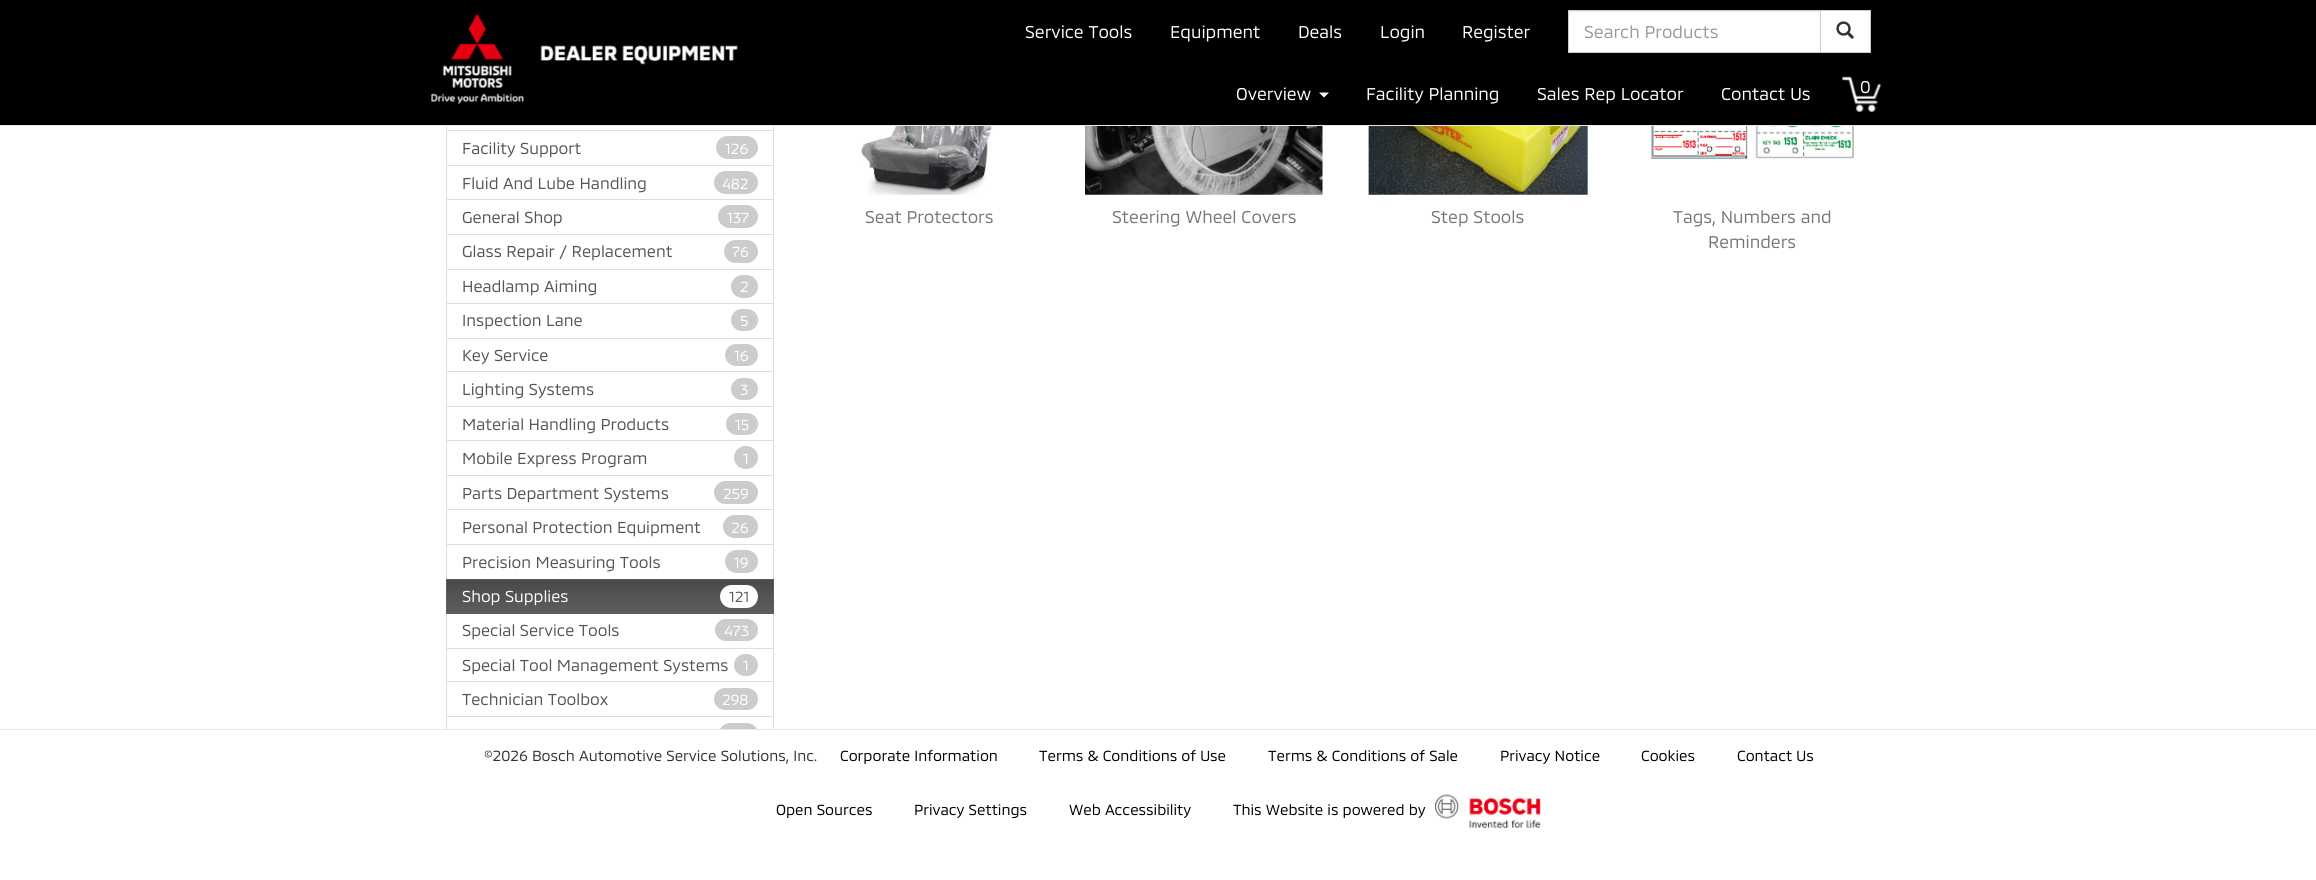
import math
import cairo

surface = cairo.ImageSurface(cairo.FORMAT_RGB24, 2316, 880)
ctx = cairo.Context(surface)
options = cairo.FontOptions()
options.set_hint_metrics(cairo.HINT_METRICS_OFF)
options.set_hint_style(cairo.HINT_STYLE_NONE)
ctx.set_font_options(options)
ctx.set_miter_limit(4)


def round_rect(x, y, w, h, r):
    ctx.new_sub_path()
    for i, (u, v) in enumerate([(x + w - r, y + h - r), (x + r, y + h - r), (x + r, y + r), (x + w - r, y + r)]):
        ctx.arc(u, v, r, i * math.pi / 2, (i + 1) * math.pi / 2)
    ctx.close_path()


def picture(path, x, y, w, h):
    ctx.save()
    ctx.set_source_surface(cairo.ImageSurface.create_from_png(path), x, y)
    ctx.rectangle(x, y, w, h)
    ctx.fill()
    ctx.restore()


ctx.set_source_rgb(1, 1, 1)
ctx.paint()
ctx.rectangle(446.5, 96.5, 327, 34)
ctx.set_source_rgb(0.867, 0.867, 0.867)
ctx.set_line_width(1)
ctx.stroke()
ctx.set_source_rgb(0, 0, 0)
ctx.rectangle(0, 0, 2316, 125)
ctx.fill()
ctx.set_source_rgb(0.906, 0.906, 0.906)
ctx.rectangle(0, 125, 2316, 1)
ctx.fill()
picture("img1.png", 431, 14, 307, 91)
ctx.select_font_face("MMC")
ctx.set_font_size(17.5)
ctx.set_source_rgb(1, 1, 1)
ctx.move_to(1025, 38)
ctx.show_text("Service Tools")
ctx.move_to(1170, 38)
ctx.show_text("Equipment")
ctx.move_to(1298, 38)
ctx.show_text("Deals")
ctx.move_to(1380, 38)
ctx.show_text("Login")
ctx.move_to(1462, 38)
ctx.show_text("Register")
ctx.rectangle(1569, 12, 251, 40)
ctx.fill()
ctx.set_source_rgb(0.925, 0.925, 0.925)
ctx.rectangle(1569, 11, 251, 1)
ctx.fill()
ctx.rectangle(1568.5, 10.5, 252, 42)
ctx.set_source_rgb(0.8, 0.8, 0.8)
ctx.stroke()
ctx.set_source_rgb(0.6, 0.6, 0.6)
ctx.move_to(1584, 38)
ctx.show_text("Search Products")
ctx.set_source_rgb(1, 1, 1)
ctx.rectangle(1820.5, 10.5, 50, 42)
ctx.fill_preserve()
ctx.set_source_rgb(0.8, 0.8, 0.8)
ctx.stroke()
picture("img2.png", 1836, 21, 18, 18)
ctx.set_source_rgb(1, 1, 1)
ctx.move_to(1236, 100)
ctx.show_text("Overview")
ctx.new_path()
ctx.move_to(1319, 92.5)
ctx.line_to(1329, 92.5)
ctx.line_to(1324, 97.5)
ctx.close_path()
ctx.fill()
ctx.move_to(1366, 100)
ctx.show_text("Facility Planning")
ctx.move_to(1537, 100)
ctx.show_text("Sales Rep Locator")
ctx.move_to(1721, 100)
ctx.show_text("Contact Us")
picture("img3.png", 1841, 76, 40, 36)
ctx.move_to(1860, 93)
ctx.show_text("0")
ctx.rectangle(446.5, 130.5, 327, 35)
ctx.set_source_rgb(0.867, 0.867, 0.867)
ctx.stroke()
ctx.set_font_size(16.25)
ctx.set_source_rgb(0.333, 0.333, 0.333)
ctx.move_to(462, 154)
ctx.show_text("Facility Support")
ctx.set_source_rgb(0.8, 0.8, 0.8)
round_rect(716, 136, 42, 23, 11.5)
ctx.fill()
ctx.set_font_size(15)
ctx.set_source_rgb(1, 1, 1)
ctx.move_to(725, 154)
ctx.show_text("126")
ctx.rectangle(446.5, 165.5, 327, 34)
ctx.set_source_rgb(0.867, 0.867, 0.867)
ctx.stroke()
ctx.set_font_size(16.25)
ctx.set_source_rgb(0.333, 0.333, 0.333)
ctx.move_to(462, 189)
ctx.show_text("Fluid And Lube Handling")
ctx.set_source_rgb(0.8, 0.8, 0.8)
round_rect(714, 171, 44, 23, 11.5)
ctx.fill()
ctx.set_font_size(15)
ctx.set_source_rgb(1, 1, 1)
ctx.move_to(722, 189)
ctx.show_text("482")
ctx.rectangle(446.5, 199.5, 327, 35)
ctx.set_source_rgb(0.867, 0.867, 0.867)
ctx.stroke()
ctx.set_font_size(16.25)
ctx.set_source_rgb(0.333, 0.333, 0.333)
ctx.move_to(462, 223)
ctx.show_text("General Shop")
ctx.set_source_rgb(0.8, 0.8, 0.8)
round_rect(718, 205, 40, 23, 11.5)
ctx.fill()
ctx.set_font_size(15)
ctx.set_source_rgb(1, 1, 1)
ctx.move_to(727, 223)
ctx.show_text("137")
ctx.rectangle(446.5, 234.5, 327, 35)
ctx.set_source_rgb(0.867, 0.867, 0.867)
ctx.stroke()
ctx.set_font_size(16.25)
ctx.set_source_rgb(0.333, 0.333, 0.333)
ctx.move_to(462, 257)
ctx.show_text("Glass Repair / Replacement")
ctx.set_source_rgb(0.8, 0.8, 0.8)
round_rect(724, 240, 34, 23, 11.5)
ctx.fill()
ctx.set_font_size(15)
ctx.set_source_rgb(1, 1, 1)
ctx.move_to(732, 257)
ctx.show_text("76")
ctx.rectangle(446.5, 269.5, 327, 34)
ctx.set_source_rgb(0.867, 0.867, 0.867)
ctx.stroke()
ctx.set_font_size(16.25)
ctx.set_source_rgb(0.333, 0.333, 0.333)
ctx.move_to(462, 292)
ctx.show_text("Headlamp Aiming")
ctx.set_source_rgb(0.8, 0.8, 0.8)
round_rect(731, 275, 27, 23, 11.5)
ctx.fill()
ctx.set_font_size(15)
ctx.set_source_rgb(1, 1, 1)
ctx.move_to(740, 292)
ctx.show_text("2")
ctx.rectangle(446.5, 303.5, 327, 35)
ctx.set_source_rgb(0.867, 0.867, 0.867)
ctx.stroke()
ctx.set_font_size(16.25)
ctx.set_source_rgb(0.333, 0.333, 0.333)
ctx.move_to(462, 326)
ctx.show_text("Inspection Lane")
ctx.set_source_rgb(0.8, 0.8, 0.8)
round_rect(731, 309, 27, 22, 11)
ctx.fill()
ctx.set_font_size(15)
ctx.set_source_rgb(1, 1, 1)
ctx.move_to(740, 326)
ctx.show_text("5")
ctx.rectangle(446.5, 338.5, 327, 34)
ctx.set_source_rgb(0.867, 0.867, 0.867)
ctx.stroke()
ctx.set_font_size(16.25)
ctx.set_source_rgb(0.333, 0.333, 0.333)
ctx.move_to(462, 361)
ctx.show_text("Key Service")
ctx.set_source_rgb(0.8, 0.8, 0.8)
round_rect(725, 344, 33, 22, 11)
ctx.fill()
ctx.set_font_size(15)
ctx.set_source_rgb(1, 1, 1)
ctx.move_to(734, 361)
ctx.show_text("16")
ctx.rectangle(447, 372, 326, 1)
ctx.fill()
ctx.rectangle(446.5, 371.5, 327, 36)
ctx.set_source_rgb(0.867, 0.867, 0.867)
ctx.stroke()
ctx.set_font_size(16.25)
ctx.set_source_rgb(0.333, 0.333, 0.333)
ctx.move_to(462, 395)
ctx.show_text("Lighting Systems")
ctx.set_source_rgb(0.8, 0.8, 0.8)
round_rect(731, 378, 27, 22, 11)
ctx.fill()
ctx.set_font_size(15)
ctx.set_source_rgb(1, 1, 1)
ctx.move_to(740, 395)
ctx.show_text("3")
ctx.rectangle(447, 407, 326, 1)
ctx.fill()
ctx.rectangle(446.5, 406.5, 327, 34)
ctx.set_source_rgb(0.867, 0.867, 0.867)
ctx.stroke()
ctx.set_font_size(16.25)
ctx.set_source_rgb(0.333, 0.333, 0.333)
ctx.move_to(462, 430)
ctx.show_text("Material Handling Products")
ctx.set_source_rgb(0.8, 0.8, 0.8)
round_rect(726, 413, 32, 22, 11)
ctx.fill()
ctx.set_font_size(15)
ctx.set_source_rgb(1, 1, 1)
ctx.move_to(735, 430)
ctx.show_text("15")
ctx.rectangle(446.5, 440.5, 327, 35)
ctx.set_source_rgb(0.867, 0.867, 0.867)
ctx.stroke()
ctx.set_font_size(16.25)
ctx.set_source_rgb(0.333, 0.333, 0.333)
ctx.move_to(462, 464)
ctx.show_text("Mobile Express Program")
ctx.set_source_rgb(0.8, 0.8, 0.8)
round_rect(734, 446, 24, 23, 11.5)
ctx.fill()
ctx.set_font_size(15)
ctx.set_source_rgb(1, 1, 1)
ctx.move_to(743, 464)
ctx.show_text("1")
ctx.rectangle(446.5, 475.5, 327, 34)
ctx.set_source_rgb(0.867, 0.867, 0.867)
ctx.stroke()
ctx.set_font_size(16.25)
ctx.set_source_rgb(0.333, 0.333, 0.333)
ctx.move_to(462, 499)
ctx.show_text("Parts Department Systems")
ctx.set_source_rgb(0.8, 0.8, 0.8)
round_rect(714, 481, 44, 23, 11.5)
ctx.fill()
ctx.set_font_size(15)
ctx.set_source_rgb(1, 1, 1)
ctx.move_to(723, 499)
ctx.show_text("259")
ctx.rectangle(446.5, 509.5, 327, 35)
ctx.set_source_rgb(0.867, 0.867, 0.867)
ctx.stroke()
ctx.set_font_size(16.25)
ctx.set_source_rgb(0.333, 0.333, 0.333)
ctx.move_to(462, 533)
ctx.show_text("Personal Protection Equipment")
ctx.set_source_rgb(0.8, 0.8, 0.8)
round_rect(723, 515, 35, 23, 11.5)
ctx.fill()
ctx.set_font_size(15)
ctx.set_source_rgb(1, 1, 1)
ctx.move_to(731, 533)
ctx.show_text("26")
ctx.rectangle(446.5, 544.5, 327, 35)
ctx.set_source_rgb(0.867, 0.867, 0.867)
ctx.stroke()
ctx.set_font_size(16.25)
ctx.set_source_rgb(0.333, 0.333, 0.333)
ctx.move_to(462, 568)
ctx.show_text("Precision Measuring Tools")
ctx.set_source_rgb(0.8, 0.8, 0.8)
round_rect(725, 550, 33, 23, 11.5)
ctx.fill()
ctx.set_font_size(15)
ctx.set_source_rgb(1, 1, 1)
ctx.move_to(734, 568)
ctx.show_text("19")
gradient = cairo.LinearGradient(610, 580, 610, 613)
gradient.add_color_stop_rgba(0, 0.29, 0.29, 0.29, 1)
gradient.add_color_stop_rgba(1, 0.365, 0.365, 0.365, 1)
ctx.set_source(gradient)
ctx.rectangle(447, 580, 326, 33)
ctx.fill()
ctx.rectangle(446.5, 613.5, 327, 35)
ctx.set_source_rgb(0.867, 0.867, 0.867)
ctx.stroke()
ctx.rectangle(446.5, 579.5, 327, 34)
ctx.set_source_rgb(0.365, 0.365, 0.365)
ctx.stroke()
ctx.set_font_size(16.25)
ctx.set_source_rgb(1, 1, 1)
ctx.move_to(462, 602)
ctx.show_text("Shop Supplies")
round_rect(720, 585, 38, 23, 11.5)
ctx.fill()
ctx.set_font_size(15)
ctx.set_source_rgb(0.365, 0.365, 0.365)
ctx.move_to(729, 602)
ctx.show_text("121")
ctx.set_font_size(16.25)
ctx.set_source_rgb(0.333, 0.333, 0.333)
ctx.move_to(462, 636)
ctx.show_text("Special Service Tools")
ctx.set_source_rgb(0.8, 0.8, 0.8)
round_rect(715, 619, 43, 22, 11)
ctx.fill()
ctx.set_font_size(15)
ctx.set_source_rgb(1, 1, 1)
ctx.move_to(724, 636)
ctx.show_text("473")
ctx.rectangle(446.5, 648.5, 327, 34)
ctx.set_source_rgb(0.867, 0.867, 0.867)
ctx.stroke()
ctx.set_font_size(16.25)
ctx.set_source_rgb(0.333, 0.333, 0.333)
ctx.move_to(462, 671)
ctx.show_text("Special Tool Management Systems")
ctx.set_source_rgb(0.8, 0.8, 0.8)
round_rect(734, 654, 24, 22, 11)
ctx.fill()
ctx.set_font_size(15)
ctx.set_source_rgb(1, 1, 1)
ctx.move_to(743, 671)
ctx.show_text("1")
ctx.rectangle(447, 682, 326, 1)
ctx.fill()
ctx.rectangle(446.5, 681.5, 327, 36)
ctx.set_source_rgb(0.867, 0.867, 0.867)
ctx.stroke()
ctx.set_font_size(16.25)
ctx.set_source_rgb(0.333, 0.333, 0.333)
ctx.move_to(462, 705)
ctx.show_text("Technician Toolbox")
ctx.set_source_rgb(0.8, 0.8, 0.8)
round_rect(714, 688, 44, 22, 11)
ctx.fill()
ctx.set_font_size(15)
ctx.set_source_rgb(1, 1, 1)
ctx.move_to(722, 705)
ctx.show_text("298")
ctx.rectangle(447, 717, 326, 1)
ctx.fill()
ctx.rectangle(446.5, 716.5, 327, 34)
ctx.set_source_rgb(0.867, 0.867, 0.867)
ctx.stroke()
ctx.set_source_rgb(0.8, 0.8, 0.8)
round_rect(719, 723, 39, 22, 11)
ctx.fill()
picture("img4.png", 861, 126, 137, 69)
ctx.set_font_size(17.5)
ctx.set_source_rgb(0.467, 0.467, 0.467)
ctx.move_to(865, 223)
ctx.show_text("Seat Protectors")
picture("img5.png", 1085, 126, 238, 69)
ctx.move_to(1112, 223)
ctx.show_text("Steering Wheel Covers")
picture("img6.png", 1368, 126, 221, 69)
ctx.move_to(1431, 223)
ctx.show_text("Step Stools")
picture("img7.png", 1651, 126, 203, 33)
ctx.move_to(1673, 223)
ctx.show_text("Tags, Numbers and")
ctx.move_to(1708, 248)
ctx.show_text("Reminders")
ctx.set_source_rgb(1, 1, 1)
ctx.rectangle(446, 730, 328, 21)
ctx.fill()
ctx.set_source_rgb(0.906, 0.906, 0.906)
ctx.rectangle(0, 729, 2316, 1)
ctx.fill()
ctx.set_font_size(15)
ctx.set_source_rgb(0.2, 0.2, 0.2)
ctx.move_to(484, 761)
ctx.show_text("©2026 Bosch Automotive Service Solutions, Inc.")
ctx.set_source_rgb(0, 0, 0)
ctx.move_to(840, 761)
ctx.show_text("Corporate Information")
ctx.move_to(1039, 761)
ctx.show_text("Terms & Conditions of Use")
ctx.move_to(1268, 761)
ctx.show_text("Terms & Conditions of Sale")
ctx.move_to(1500, 761)
ctx.show_text("Privacy Notice")
ctx.move_to(1641, 761)
ctx.show_text("Cookies")
ctx.move_to(1737, 761)
ctx.show_text("Contact Us")
ctx.move_to(776, 815)
ctx.show_text("Open Sources")
ctx.move_to(914, 815)
ctx.show_text("Privacy Settings")
ctx.move_to(1069, 815)
ctx.show_text("Web Accessibility")
ctx.move_to(1233, 815)
ctx.show_text("This Website is powered by")
picture("img8.png", 1435, 794, 106, 35)
surface.write_to_png("page.png")
